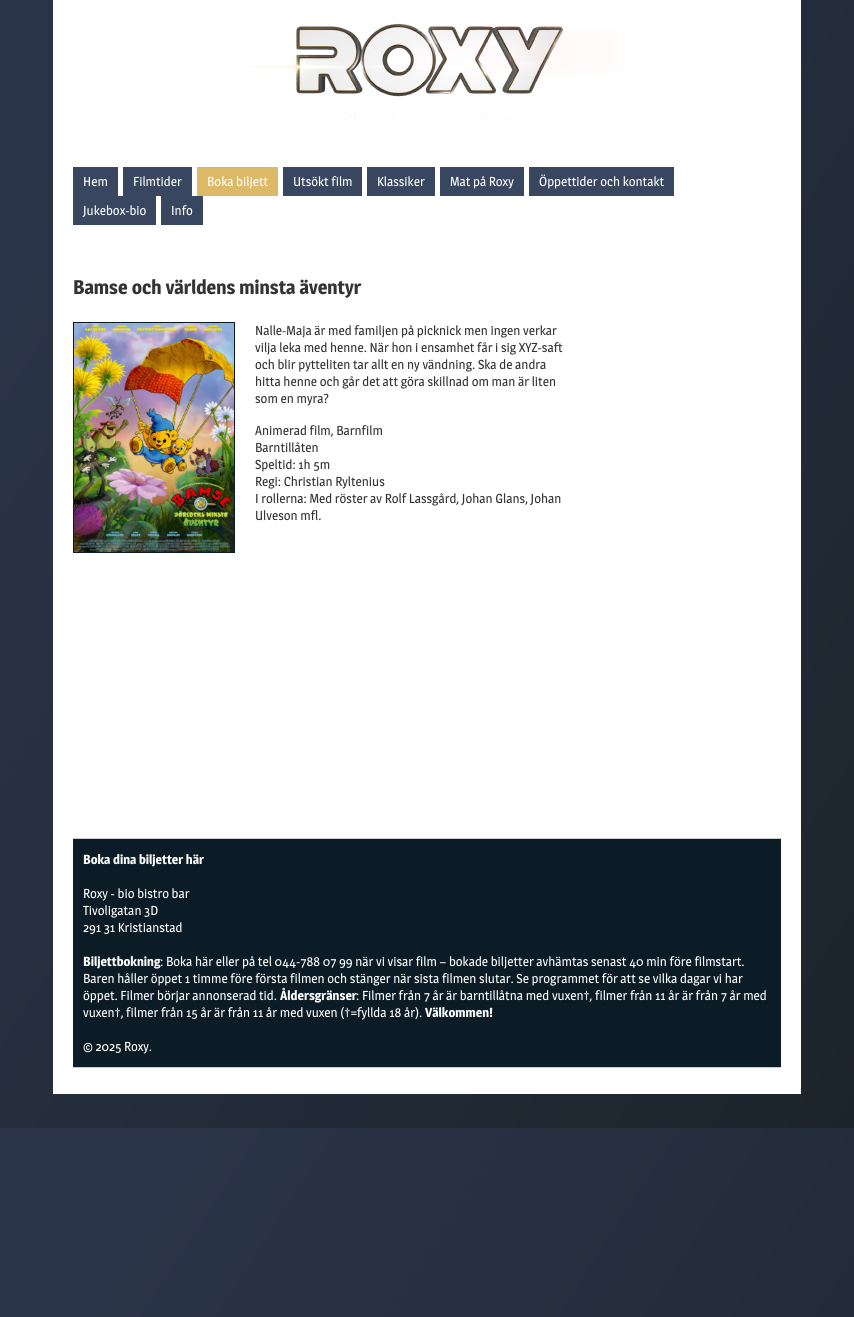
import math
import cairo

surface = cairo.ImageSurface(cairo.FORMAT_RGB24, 854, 1317)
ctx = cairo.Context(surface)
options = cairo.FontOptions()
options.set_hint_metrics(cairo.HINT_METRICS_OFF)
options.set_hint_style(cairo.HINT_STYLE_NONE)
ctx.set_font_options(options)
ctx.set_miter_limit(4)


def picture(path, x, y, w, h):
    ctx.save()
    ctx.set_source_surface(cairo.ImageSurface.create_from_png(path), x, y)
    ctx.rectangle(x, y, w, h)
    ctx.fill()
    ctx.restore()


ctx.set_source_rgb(1, 1, 1)
ctx.paint()
gradient = cairo.LinearGradient(-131, 202, 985, 926)
gradient.add_color_stop_rgba(0.13, 0.165, 0.204, 0.282, 1)
gradient.add_color_stop_rgba(1, 0.11, 0.141, 0.169, 1)
ctx.set_source(gradient)
ctx.rectangle(0, 0, 854, 1128)
ctx.fill()
gradient = cairo.LinearGradient(-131, 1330, 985, 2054)
gradient.add_color_stop_rgba(0.13, 0.165, 0.204, 0.282, 1)
gradient.add_color_stop_rgba(1, 0.11, 0.141, 0.169, 1)
ctx.set_source(gradient)
ctx.rectangle(0, 1128, 854, 189)
ctx.fill()
ctx.set_source_rgb(1, 1, 1)
ctx.rectangle(53, 0, 748, 1094)
ctx.fill()
picture("img1.png", 243, 23, 375, 97)
ctx.set_source_rgb(0.22, 0.275, 0.373)
ctx.rectangle(73, 167, 45, 29)
ctx.fill()
ctx.select_font_face("Magra")
ctx.set_font_size(13)
ctx.set_source_rgb(1, 1, 1)
ctx.move_to(83, 186)
ctx.show_text("Hem")
ctx.set_source_rgb(0.22, 0.275, 0.373)
ctx.rectangle(123, 167, 69, 29)
ctx.fill()
ctx.set_source_rgb(1, 1, 1)
ctx.move_to(133, 186)
ctx.show_text("Filmtider")
ctx.set_source_rgb(0.859, 0.725, 0.404)
ctx.rectangle(197, 167, 81, 29)
ctx.fill()
ctx.set_source_rgb(1, 1, 1)
ctx.move_to(207, 186)
ctx.show_text("Boka biljett")
ctx.set_source_rgb(0.22, 0.275, 0.373)
ctx.rectangle(283, 167, 79, 29)
ctx.fill()
ctx.set_source_rgb(1, 1, 1)
ctx.move_to(293, 186)
ctx.show_text("Utsökt film")
ctx.set_source_rgb(0.22, 0.275, 0.373)
ctx.rectangle(367, 167, 68, 29)
ctx.fill()
ctx.set_source_rgb(1, 1, 1)
ctx.move_to(377, 186)
ctx.show_text("Klassiker")
ctx.set_source_rgb(0.22, 0.275, 0.373)
ctx.rectangle(440, 167, 84, 29)
ctx.fill()
ctx.set_source_rgb(1, 1, 1)
ctx.move_to(450, 186)
ctx.show_text("Mat på Roxy")
ctx.set_source_rgb(0.22, 0.275, 0.373)
ctx.rectangle(529, 167, 145, 29)
ctx.fill()
ctx.set_source_rgb(1, 1, 1)
ctx.move_to(539, 186)
ctx.show_text("Öppettider och kontakt")
ctx.set_source_rgb(0.22, 0.275, 0.373)
ctx.rectangle(73, 196, 83, 29)
ctx.fill()
ctx.set_source_rgb(1, 1, 1)
ctx.move_to(83, 215)
ctx.show_text("Jukebox-bio")
ctx.set_source_rgb(0.22, 0.275, 0.373)
ctx.rectangle(161, 196, 42, 29)
ctx.fill()
ctx.set_source_rgb(1, 1, 1)
ctx.move_to(171, 215)
ctx.show_text("Info")
ctx.select_font_face("Magra", cairo.FONT_SLANT_NORMAL, cairo.FONT_WEIGHT_BOLD)
ctx.set_font_size(19.5)
ctx.set_source_rgb(0.2, 0.2, 0.2)
ctx.move_to(73, 294)
ctx.show_text("Bamse och världens minsta äventyr")
picture("img2.png", 74, 323, 160, 229)
ctx.rectangle(73.5, 322.5, 161, 230)
ctx.set_source_rgb(0.043, 0.11, 0.149)
ctx.set_line_width(1)
ctx.stroke()
ctx.select_font_face("Magra")
ctx.set_font_size(13)
ctx.set_source_rgb(0.2, 0.2, 0.2)
ctx.move_to(255, 335)
ctx.show_text("Nalle-Maja är med familjen på picknick men ingen verkar")
ctx.move_to(255, 352)
ctx.show_text("vilja leka med henne. När hon i ensamhet får i sig XYZ-saft")
ctx.move_to(255, 369)
ctx.show_text("och blir pytteliten tar allt en ny vändning. Ska de andra")
ctx.move_to(255, 386)
ctx.show_text("hitta henne och går det att göra skillnad om man är liten")
ctx.move_to(255, 403)
ctx.show_text("som en myra?")
ctx.move_to(255, 435)
ctx.show_text("Animerad film, Barnfilm")
ctx.move_to(255, 452)
ctx.show_text("Barntillåten")
ctx.move_to(255, 469)
ctx.show_text("Speltid: 1h 5m")
ctx.move_to(255, 486)
ctx.show_text("Regi: Christian Ryltenius")
ctx.move_to(255, 503)
ctx.show_text("I rollerna: Med röster av Rolf Lassgård, Johan Glans, Johan")
ctx.move_to(255, 520)
ctx.show_text("Ulveson mfl.")
ctx.set_source_rgb(0.043, 0.11, 0.149)
ctx.rectangle(73, 839, 708, 228)
ctx.fill()
ctx.set_source_rgb(0.796, 0.796, 0.796)
ctx.rectangle(73, 838, 708, 1)
ctx.fill()
ctx.rectangle(73, 1067, 708, 1)
ctx.fill()
ctx.select_font_face("Magra", cairo.FONT_SLANT_NORMAL, cairo.FONT_WEIGHT_BOLD)
ctx.set_source_rgb(1, 1, 1)
ctx.move_to(83, 864)
ctx.show_text("Boka dina biljetter här")
ctx.select_font_face("Magra")
ctx.move_to(83, 898)
ctx.show_text("Roxy - bio bistro bar")
ctx.move_to(83, 915)
ctx.show_text("Tivoligatan 3D")
ctx.move_to(83, 932)
ctx.show_text("291 31 Kristianstad")
ctx.select_font_face("Magra", cairo.FONT_SLANT_NORMAL, cairo.FONT_WEIGHT_BOLD)
ctx.move_to(83, 966)
ctx.show_text("Biljettbokning")
ctx.select_font_face("Magra")
ctx.move_to(160, 966)
ctx.show_text(": Boka här eller på tel 044-788 07 99 när vi visar film – bokade biljetter avhämtas senast 40 min före filmstart.")
ctx.move_to(83, 983)
ctx.show_text("Baren håller öppet 1 timme före första filmen och stänger när sista filmen slutar. Se programmet för att se vilka dagar vi har")
ctx.move_to(83, 1000)
ctx.show_text("öppet. Filmer börjar annonserad tid.")
ctx.select_font_face("Magra", cairo.FONT_SLANT_NORMAL, cairo.FONT_WEIGHT_BOLD)
ctx.move_to(280, 1000)
ctx.show_text("Åldersgränser")
ctx.select_font_face("Magra")
ctx.move_to(356, 1000)
ctx.show_text(": Filmer från 7 år är barntillåtna med vuxen†, filmer från 11 år är från 7 år med")
ctx.move_to(83, 1017)
ctx.show_text("vuxen†, filmer från 15 år är från 11 år med vuxen (†=fyllda 18 år).")
ctx.select_font_face("Magra", cairo.FONT_SLANT_NORMAL, cairo.FONT_WEIGHT_BOLD)
ctx.move_to(425, 1017)
ctx.show_text("Välkommen!")
ctx.select_font_face("Magra")
ctx.move_to(83, 1051)
ctx.show_text("© 2025 Roxy.")
surface.write_to_png("page.png")
